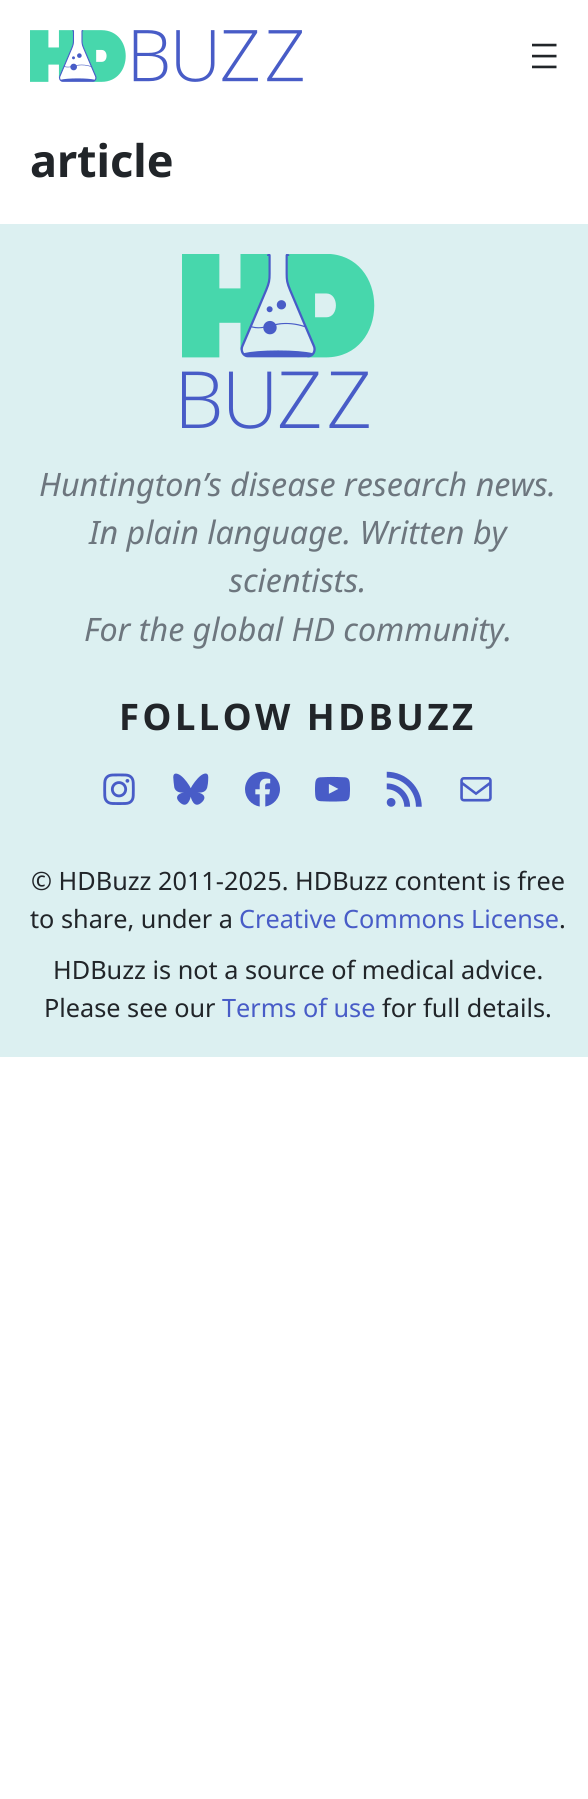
import math
import cairo

surface = cairo.ImageSurface(cairo.FORMAT_RGB24, 588, 1799)
ctx = cairo.Context(surface)
options = cairo.FontOptions()
options.set_hint_metrics(cairo.HINT_METRICS_OFF)
options.set_hint_style(cairo.HINT_STYLE_NONE)
ctx.set_font_options(options)
ctx.set_miter_limit(4)


def spaced_text(x, y, s, letter, word):
    ctx.move_to(x, y)
    for ch in s:
        ctx.show_text(ch)
        ctx.rel_move_to(letter + word * (ch == ' '), 0)


def picture(path, x, y, w, h):
    ctx.save()
    ctx.set_source_surface(cairo.ImageSurface.create_from_png(path), x, y)
    ctx.rectangle(x, y, w, h)
    ctx.fill()
    ctx.restore()


ctx.set_source_rgb(1, 1, 1)
ctx.paint()
picture("img1.png", 30, 30, 273, 52)
picture("img2.png", 532, 43, 25, 26)
ctx.select_font_face("Noto Sans", cairo.FONT_SLANT_NORMAL, cairo.FONT_WEIGHT_BOLD)
ctx.set_font_size(45)
ctx.set_source_rgb(0.129, 0.145, 0.161)
ctx.move_to(30, 177)
ctx.show_text("article")
ctx.set_source_rgb(0.863, 0.941, 0.945)
ctx.rectangle(0, 224, 588, 833)
ctx.fill()
picture("img3.png", 182, 254, 193, 175)
ctx.select_font_face("Noto Sans", cairo.FONT_SLANT_ITALIC)
ctx.set_font_size(32.25)
ctx.set_source_rgb(0.427, 0.463, 0.494)
ctx.move_to(39, 496)
ctx.show_text("Huntington’s disease research news.")
ctx.move_to(89, 544)
ctx.show_text("In plain language. Written by")
ctx.move_to(229, 592)
ctx.show_text("scientists.")
ctx.move_to(84, 641)
ctx.show_text("For the global HD community.")
ctx.select_font_face("Noto Sans", cairo.FONT_SLANT_NORMAL, cairo.FONT_WEIGHT_BOLD)
ctx.set_font_size(36.5)
ctx.set_source_rgb(0.129, 0.145, 0.161)
spaced_text(119, 730, "FOLLOW HDBUZZ", 3.5, 0)
picture("img4.png", 103, 773, 32, 32)
picture("img5.png", 173, 773, 36, 32)
picture("img6.png", 245, 771, 35, 36)
picture("img7.png", 315, 776, 35, 26)
picture("img8.png", 386, 771, 36, 36)
picture("img9.png", 460, 777, 32, 25)
ctx.select_font_face("Noto Sans")
ctx.set_font_size(25.25)
ctx.move_to(31, 890)
ctx.show_text("© HDBuzz 2011-2025. HDBuzz content is free")
ctx.move_to(30, 928)
ctx.show_text("to share, under a")
ctx.set_source_rgb(0.282, 0.361, 0.78)
ctx.move_to(239, 928)
ctx.show_text("Creative Commons License")
ctx.set_source_rgb(0.129, 0.145, 0.161)
ctx.move_to(559, 928)
ctx.show_text(".")
ctx.move_to(53, 979)
ctx.show_text("HDBuzz is not a source of medical advice.")
ctx.move_to(44, 1017)
ctx.show_text("Please see our")
ctx.set_source_rgb(0.282, 0.361, 0.78)
ctx.move_to(222, 1017)
ctx.show_text("Terms of use")
ctx.set_source_rgb(0.129, 0.145, 0.161)
ctx.move_to(382, 1017)
ctx.show_text("for full details.")
surface.write_to_png("page.png")
